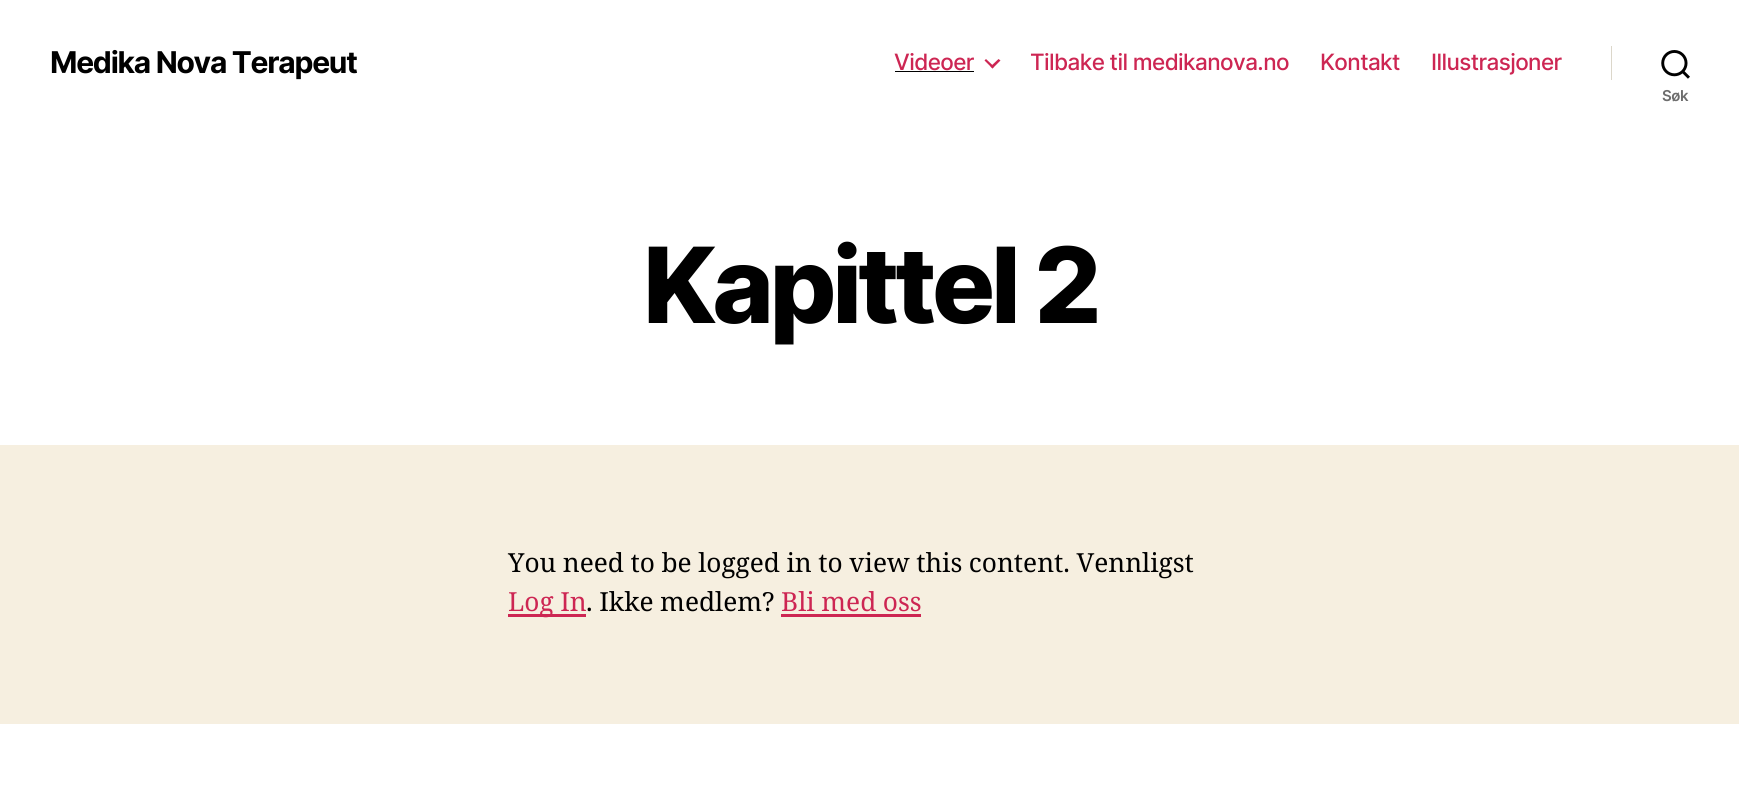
import math
import cairo

surface = cairo.ImageSurface(cairo.FORMAT_RGB24, 1739, 801)
ctx = cairo.Context(surface)
options = cairo.FontOptions()
options.set_hint_metrics(cairo.HINT_METRICS_OFF)
options.set_hint_style(cairo.HINT_STYLE_NONE)
ctx.set_font_options(options)
ctx.set_miter_limit(4)


def spaced_text(x, y, s, letter, word):
    ctx.move_to(x, y)
    for ch in s:
        ctx.show_text(ch)
        ctx.rel_move_to(letter + word * (ch == ' '), 0)


def picture(path, x, y, w, h):
    ctx.save()
    ctx.set_source_surface(cairo.ImageSurface.create_from_png(path), x, y)
    ctx.rectangle(x, y, w, h)
    ctx.fill()
    ctx.restore()


ctx.set_source_rgb(0.961, 0.937, 0.878)
ctx.paint()
ctx.set_source_rgb(1, 1, 1)
ctx.rectangle(0, 0, 1739, 445)
ctx.fill()
ctx.select_font_face("Inter", cairo.FONT_SLANT_NORMAL, cairo.FONT_WEIGHT_BOLD)
ctx.set_font_size(30)
ctx.set_source_rgb(0, 0, 0)
spaced_text(50, 73, "Medika Nova Terapeut", -1.25, 0)
ctx.select_font_face("Inter Medium")
ctx.set_font_size(22.5)
ctx.set_source_rgb(0.804, 0.149, 0.325)
spaced_text(894, 70, "Videoer", -0.6, 0)
ctx.set_source_rgb(0, 0, 0)
ctx.rectangle(895, 71, 79, 1)
ctx.fill()
ctx.set_source_rgb(0.804, 0.149, 0.325)
ctx.new_path()
ctx.move_to(984.5, 60.5)
ctx.line_to(986, 59)
ctx.line_to(994, 66.5)
ctx.line_to(992.5, 68.5)
ctx.close_path()
ctx.fill()
ctx.new_path()
ctx.move_to(990.5, 66.5)
ctx.line_to(998.5, 59)
ctx.line_to(1000.5, 60.5)
ctx.line_to(992.5, 68.5)
ctx.close_path()
ctx.fill()
spaced_text(1030, 70, "Tilbake til medikanova.no", -0.6, 0)
spaced_text(1320, 70, "Kontakt", -0.6, 0)
spaced_text(1431, 70, "Illustrasjoner", -0.6, 0)
ctx.set_source_rgb(0.863, 0.843, 0.792)
ctx.rectangle(1611, 46, 1, 34)
ctx.fill()
picture("img1.png", 1661, 50, 29, 29)
ctx.select_font_face("Inter SemiBold")
ctx.set_font_size(15)
ctx.set_source_rgb(0.427, 0.427, 0.427)
spaced_text(1662, 101, "Søk", -0.5, 0)
ctx.select_font_face("Inter ExtraBold")
ctx.set_font_size(105)
ctx.set_source_rgb(0, 0, 0)
spaced_text(643, 323, "Kapittel 2", -4.4, 0)
ctx.select_font_face("Noto Serif")
ctx.set_font_size(26.25)
spaced_text(508, 572, "You need to be logged in to view this content. Vennligst", 0, -0.25)
ctx.set_source_rgb(0.804, 0.149, 0.325)
ctx.rectangle(508, 614, 78, 3)
ctx.fill()
spaced_text(508, 611, "Log In", 0, -0.25)
ctx.set_source_rgb(0, 0, 0)
spaced_text(586, 611, ". Ikke medlem?", 0, -0.25)
ctx.set_source_rgb(0.804, 0.149, 0.325)
spaced_text(781, 611, "Bli med oss", 0, -0.25)
ctx.rectangle(781, 614, 140, 3)
ctx.fill()
ctx.set_source_rgb(1, 1, 1)
ctx.rectangle(0, 724, 1739, 77)
ctx.fill()
surface.write_to_png("page.png")
